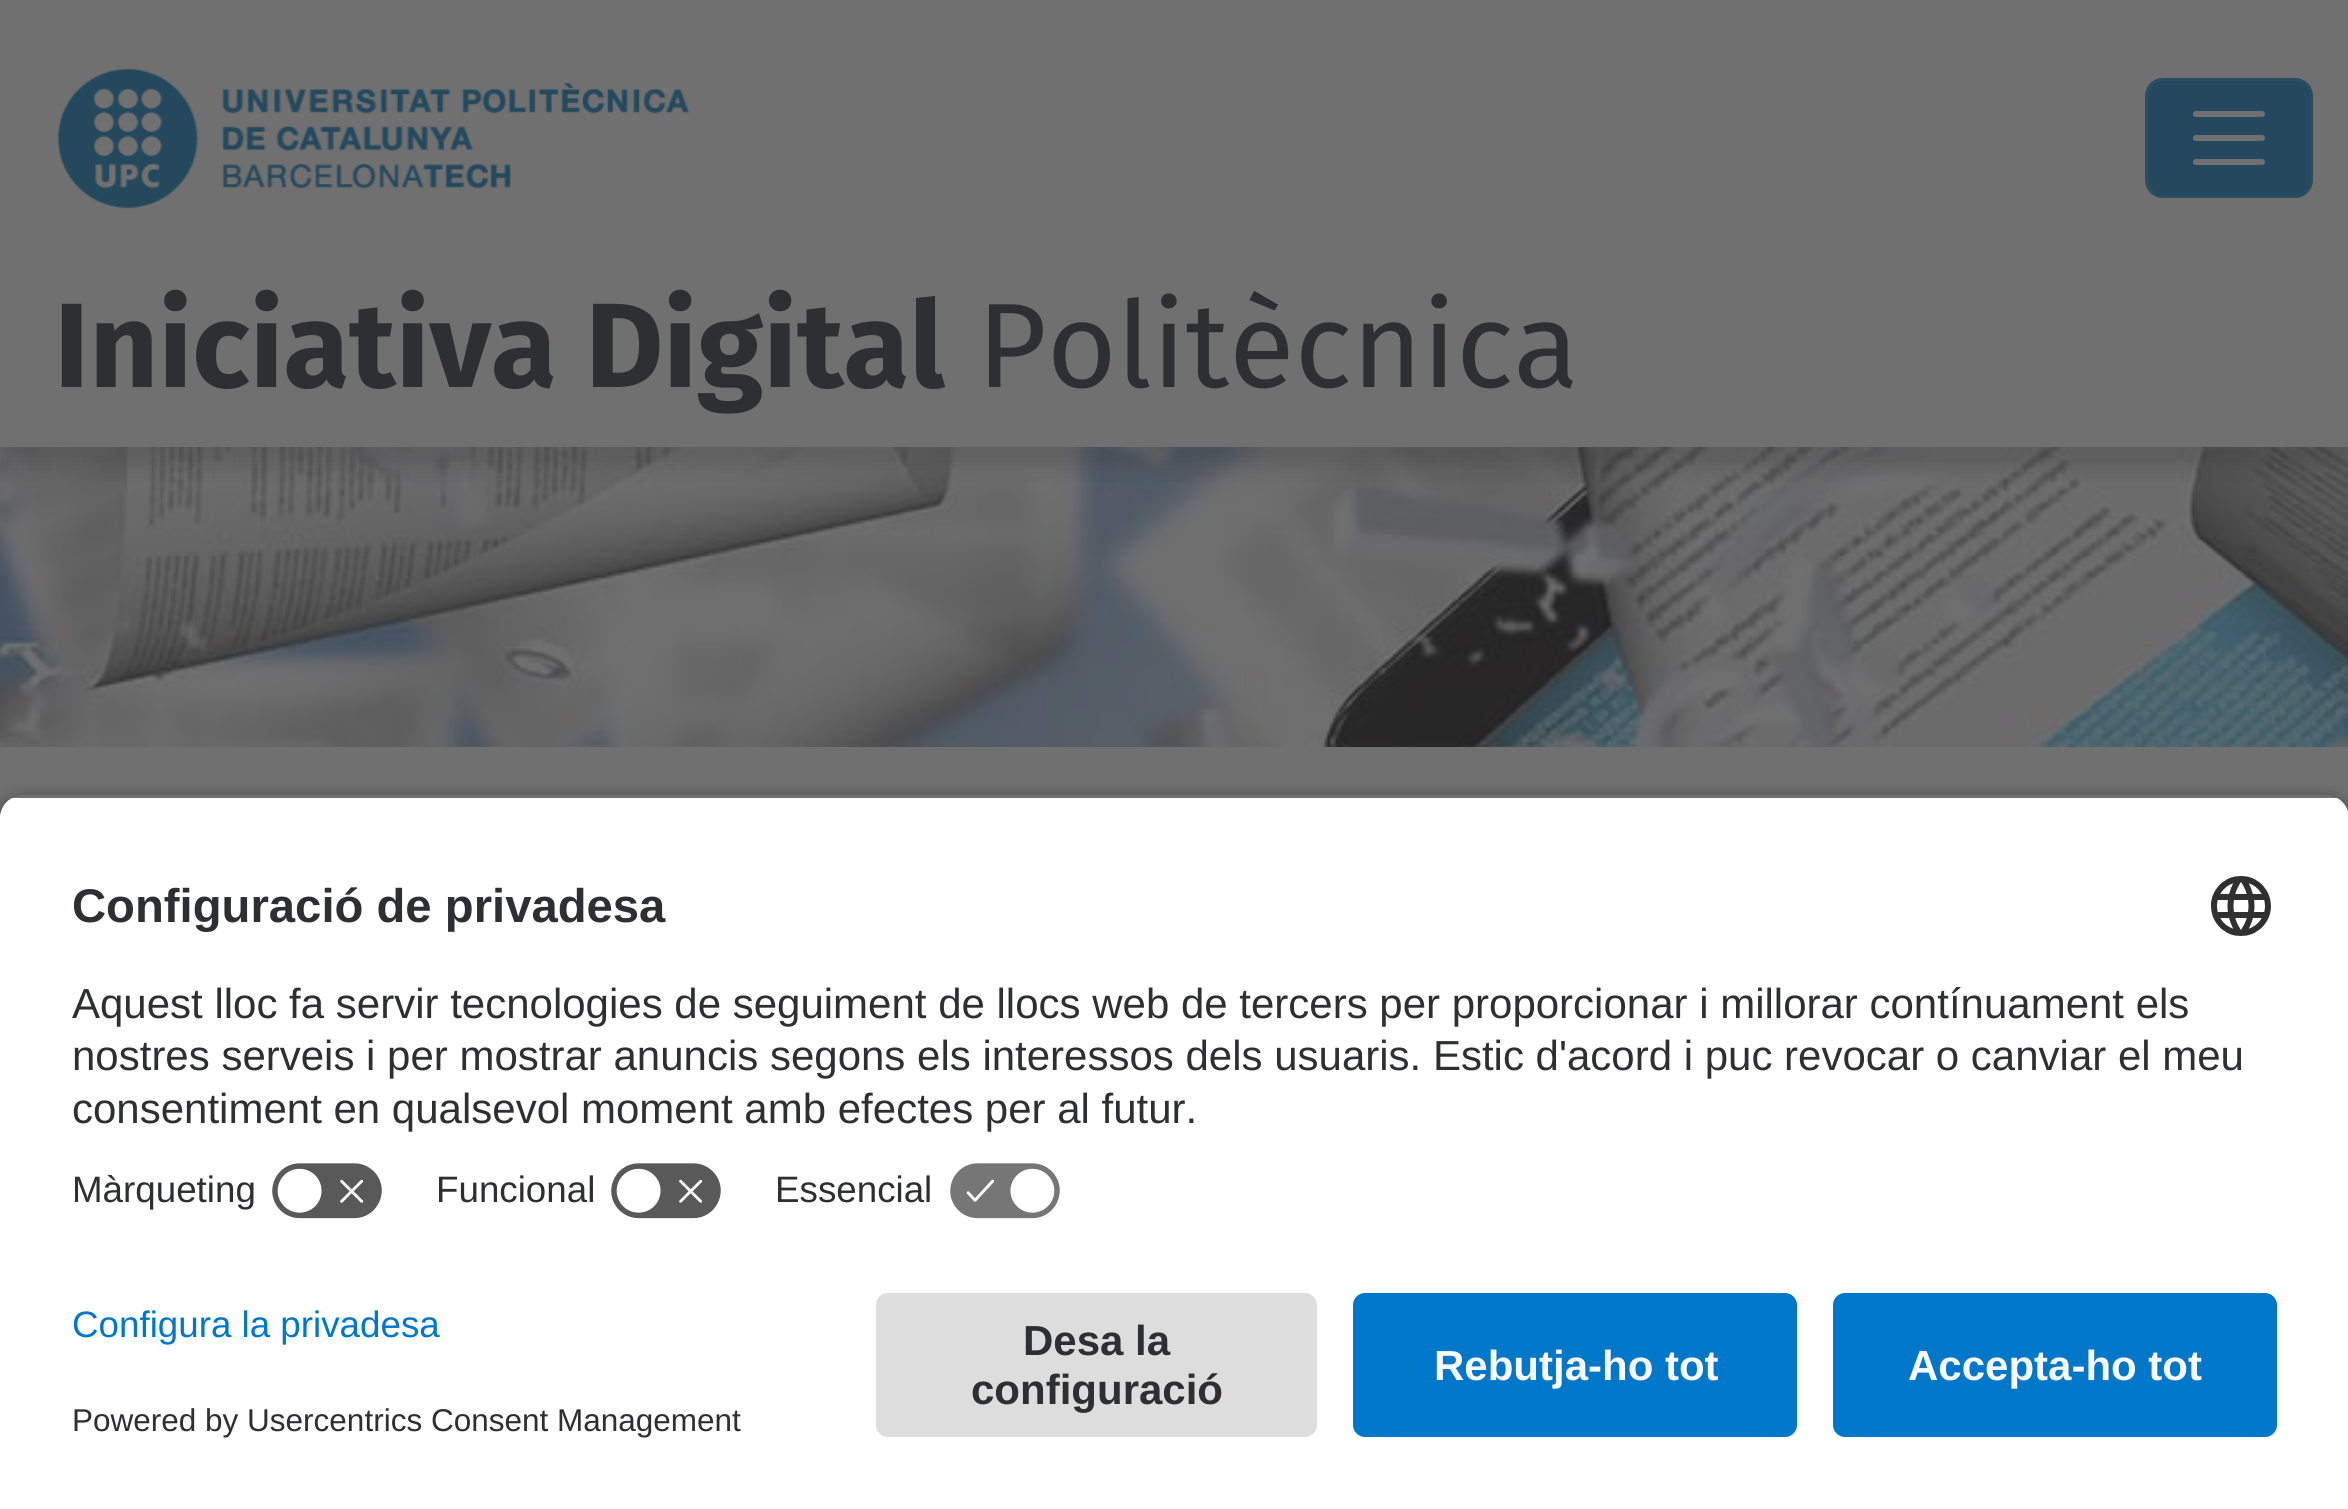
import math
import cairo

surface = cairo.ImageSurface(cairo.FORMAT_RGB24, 2348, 1509)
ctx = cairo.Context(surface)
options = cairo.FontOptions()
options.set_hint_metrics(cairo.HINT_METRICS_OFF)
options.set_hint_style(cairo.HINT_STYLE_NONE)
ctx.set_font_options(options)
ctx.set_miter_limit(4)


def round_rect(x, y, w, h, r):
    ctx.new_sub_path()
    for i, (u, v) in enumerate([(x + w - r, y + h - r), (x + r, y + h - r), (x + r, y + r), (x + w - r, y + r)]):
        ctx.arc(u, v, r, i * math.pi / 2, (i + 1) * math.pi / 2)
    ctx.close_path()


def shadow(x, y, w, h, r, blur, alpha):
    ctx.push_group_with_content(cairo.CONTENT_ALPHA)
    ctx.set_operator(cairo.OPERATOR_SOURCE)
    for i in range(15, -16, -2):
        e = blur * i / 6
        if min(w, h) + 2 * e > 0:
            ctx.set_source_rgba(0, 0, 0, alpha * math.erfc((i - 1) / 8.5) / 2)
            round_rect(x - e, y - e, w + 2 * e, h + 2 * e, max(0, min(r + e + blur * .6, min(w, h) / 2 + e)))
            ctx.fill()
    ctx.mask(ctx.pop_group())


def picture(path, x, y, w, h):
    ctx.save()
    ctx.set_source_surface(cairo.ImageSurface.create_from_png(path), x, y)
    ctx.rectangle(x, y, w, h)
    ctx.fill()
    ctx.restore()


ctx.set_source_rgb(0.439, 0.439, 0.439)
ctx.paint()
picture("img1.png", 57, 69, 633, 140)
ctx.set_source_rgb(0.141, 0.286, 0.369)
round_rect(2145, 78, 168, 120, 18)
ctx.fill()
round_rect(2146.5, 79.5, 165, 117, 16.5)
ctx.set_source_rgba(0.439, 0.439, 0.439, 0.1)
ctx.set_line_width(3)
ctx.stroke()
ctx.new_path()
ctx.move_to(2196, 114)
ctx.line_to(2262, 114)
ctx.move_to(2196, 138)
ctx.line_to(2262, 138)
ctx.move_to(2196, 162)
ctx.line_to(2262, 162)
ctx.set_source_rgb(0.439, 0.439, 0.439)
ctx.set_line_width(6)
ctx.set_line_cap(cairo.LINE_CAP_ROUND)
ctx.stroke()
picture("img2.png", 0, 447, 2348, 300)
ctx.save()
ctx.rectangle(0, 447, 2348, 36)
ctx.clip()
ctx.set_source_rgb(0.141, 0.141, 0.141)
shadow(0, 297, 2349, 171, 0, 12, 0.2)
ctx.restore()
ctx.select_font_face("Fira Sans", cairo.FONT_SLANT_NORMAL, cairo.FONT_WEIGHT_BOLD)
ctx.set_font_size(120)
ctx.set_source_rgb(0.18, 0.184, 0.188)
ctx.move_to(54, 387)
ctx.show_text("Iniciativa Digital")
ctx.select_font_face("Fira Sans")
ctx.move_to(977, 387)
ctx.show_text("Politècnica")
ctx.save()
ctx.set_fill_rule(cairo.FILL_RULE_EVEN_ODD)
ctx.new_path()
ctx.move_to(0, 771)
ctx.line_to(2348, 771)
ctx.line_to(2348, 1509)
ctx.line_to(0, 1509)
ctx.close_path()
ctx.move_to(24, 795)
ctx.line_to(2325, 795)
ctx.curve_to(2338.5, 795, 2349, 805.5, 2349, 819)
ctx.line_to(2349, 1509)
ctx.line_to(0, 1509)
ctx.line_to(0, 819)
ctx.curve_to(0, 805.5, 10.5, 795, 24, 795)
ctx.close_path()
ctx.clip()
ctx.set_source_rgb(0, 0, 0)
shadow(0, 804, 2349, 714, 24, 10.5, 0.8)
ctx.restore()
ctx.save()
ctx.new_path()
ctx.move_to(24, 795)
ctx.line_to(2325, 795)
ctx.curve_to(2338.5, 795, 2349, 805.5, 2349, 819)
ctx.line_to(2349, 1269)
ctx.line_to(0, 1269)
ctx.line_to(0, 819)
ctx.curve_to(0, 805.5, 10.5, 795, 24, 795)
ctx.close_path()
ctx.clip()
ctx.set_source_rgb(1, 1, 1)
ctx.rectangle(0, 798, 2348, 471)
ctx.fill()
ctx.rectangle(0, 798, 2348, 351)
ctx.fill()
ctx.restore()
ctx.select_font_face("Liberation Sans", cairo.FONT_SLANT_NORMAL, cairo.FONT_WEIGHT_BOLD)
ctx.set_font_size(47.25)
ctx.move_to(72, 922)
ctx.show_text("Configuració de privadesa")
picture("img3.png", 2211, 876, 60, 60)
ctx.select_font_face("Liberation Sans")
ctx.set_font_size(42)
ctx.move_to(72, 1018)
ctx.show_text("Aquest lloc fa servir tecnologies de seguiment de llocs web de tercers per proporcionar i millorar contínuament els")
ctx.move_to(72, 1070)
ctx.show_text("nostres serveis i per mostrar anuncis segons els interessos dels usuaris. Estic d'acord i puc revocar o canviar el meu")
ctx.move_to(72, 1123)
ctx.show_text("consentiment en qualsevol moment amb efectes per al futur.")
ctx.set_font_size(36.75)
ctx.move_to(72, 1202)
ctx.show_text("Màrqueting")
picture("img4.png", 272, 1163, 110, 56)
ctx.move_to(436, 1202)
ctx.show_text("Funcional")
picture("img4.png", 611, 1163, 110, 56)
ctx.move_to(775, 1202)
ctx.show_text("Essencial")
picture("img5.png", 950, 1163, 110, 56)
ctx.set_source_rgb(1, 1, 1)
ctx.rectangle(0, 1269, 2348, 240)
ctx.fill()
ctx.set_source_rgb(0, 0.467, 0.784)
ctx.move_to(72, 1337)
ctx.show_text("Configura la privadesa")
ctx.set_font_size(31.5)
ctx.set_source_rgb(0.18, 0.184, 0.188)
ctx.move_to(72, 1431)
ctx.show_text("Powered by Usercentrics Consent Management")
ctx.set_source_rgb(0.867, 0.867, 0.867)
round_rect(876, 1293, 441, 144, 12)
ctx.fill()
ctx.select_font_face("Liberation Sans", cairo.FONT_SLANT_NORMAL, cairo.FONT_WEIGHT_BOLD)
ctx.set_font_size(42)
ctx.set_source_rgb(0.18, 0.184, 0.188)
ctx.move_to(1023, 1355)
ctx.show_text("Desa la")
ctx.move_to(971, 1404)
ctx.show_text("configuració")
ctx.set_source_rgb(0, 0.467, 0.784)
round_rect(1353, 1293, 444, 144, 12)
ctx.fill()
ctx.set_source_rgb(0.98, 0.98, 0.98)
ctx.move_to(1434, 1380)
ctx.show_text("Rebutja-ho tot")
ctx.set_source_rgb(0, 0.467, 0.784)
round_rect(1833, 1293, 444, 144, 12)
ctx.fill()
ctx.set_source_rgb(0.98, 0.98, 0.98)
ctx.move_to(1908, 1380)
ctx.show_text("Accepta-ho tot")
surface.write_to_png("page.png")
